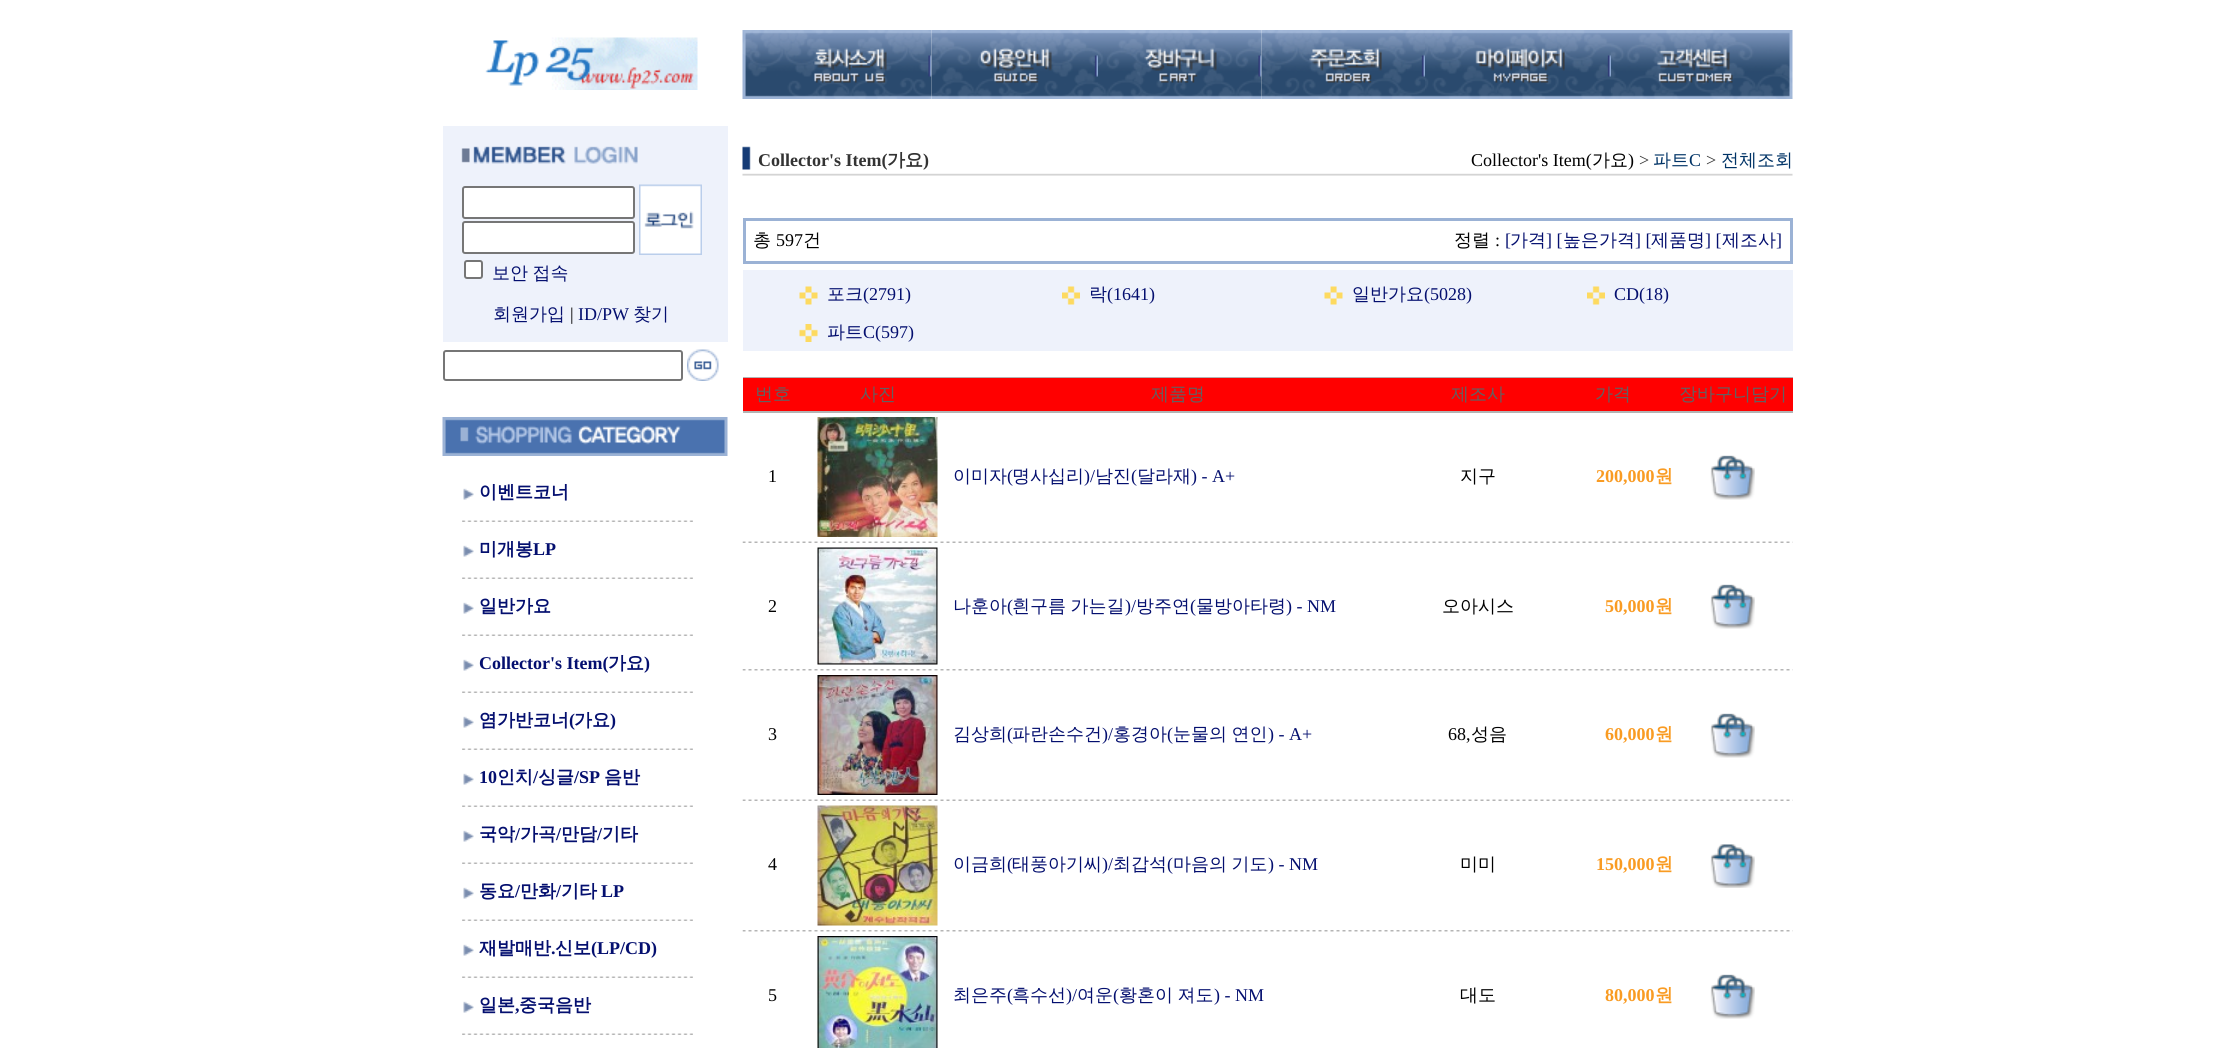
import math
import cairo

surface = cairo.ImageSurface(cairo.FORMAT_RGB24, 2235, 1048)
ctx = cairo.Context(surface)
options = cairo.FontOptions()
options.set_hint_metrics(cairo.HINT_METRICS_OFF)
options.set_hint_style(cairo.HINT_STYLE_NONE)
ctx.set_font_options(options)
ctx.set_miter_limit(4)


def spaced_text(x, y, s, letter, word):
    ctx.move_to(x, y)
    for ch in s:
        ctx.show_text(ch)
        ctx.rel_move_to(letter + word * (ch == ' '), 0)


def round_rect(x, y, w, h, r):
    ctx.new_sub_path()
    for i, (u, v) in enumerate([(x + w - r, y + h - r), (x + r, y + h - r), (x + r, y + r), (x + w - r, y + r)]):
        ctx.arc(u, v, r, i * math.pi / 2, (i + 1) * math.pi / 2)
    ctx.close_path()


def picture(path, x, y, w, h):
    ctx.save()
    ctx.set_source_surface(cairo.ImageSurface.create_from_png(path), x, y)
    ctx.rectangle(x, y, w, h)
    ctx.fill()
    ctx.restore()


ctx.set_source_rgb(1, 1, 1)
ctx.paint()
picture("img1.png", 485, 37, 213, 53)
picture("img2.png", 742, 30, 190, 69)
picture("img3.png", 931, 30, 167, 69)
picture("img4.png", 1098, 30, 164, 69)
picture("img5.png", 1261, 30, 164, 69)
picture("img6.png", 1425, 30, 186, 69)
picture("img7.png", 1611, 30, 182, 69)
ctx.set_source_rgb(0.933, 0.949, 0.984)
ctx.rectangle(443, 126, 285, 216)
ctx.fill()
picture("img8.png", 461, 146, 177, 18)
ctx.set_source_rgb(1, 1, 1)
round_rect(463, 187, 171, 31, 2)
ctx.fill_preserve()
ctx.set_source_rgb(0.463, 0.463, 0.463)
ctx.stroke()
picture("img9.png", 639, 184, 63, 71)
ctx.set_source_rgb(1, 1, 1)
round_rect(463, 222, 171, 31, 2)
ctx.fill_preserve()
ctx.set_source_rgb(0.463, 0.463, 0.463)
ctx.stroke()
ctx.set_source_rgb(1, 1, 1)
round_rect(465, 261, 17, 17, 2)
ctx.fill_preserve()
ctx.set_source_rgb(0.463, 0.463, 0.463)
ctx.stroke()
ctx.select_font_face("WenQuanYi Zen Hei Medium")
ctx.set_font_size(18)
ctx.set_source_rgb(0.016, 0.059, 0.435)
spaced_text(492, 279, "보안 접속", 0, -1)
ctx.move_to(493, 320)
ctx.show_text("회원가입")
ctx.select_font_face("Liberation Serif")
ctx.set_source_rgb(0, 0, 0)
ctx.move_to(570, 320)
ctx.show_text("|")
ctx.set_source_rgb(0.016, 0.059, 0.435)
ctx.move_to(578, 320)
ctx.show_text("ID/PW")
ctx.select_font_face("WenQuanYi Zen Hei Medium")
ctx.move_to(633, 320)
ctx.show_text("찾기")
round_rect(444, 351, 238, 29, 2)
ctx.set_source_rgb(0.463, 0.463, 0.463)
ctx.stroke()
picture("img10.png", 687, 349, 32, 32)
picture("img11.png", 442, 417, 286, 39)
picture("img12.png", 463, 488, 11, 12)
ctx.select_font_face("WenQuanYi Zen Hei", cairo.FONT_SLANT_NORMAL, cairo.FONT_WEIGHT_BOLD)
ctx.set_source_rgb(0.016, 0.059, 0.435)
ctx.move_to(479, 498)
ctx.show_text("이벤트코너")
picture("img13.png", 462, 520, 231, 2)
picture("img12.png", 463, 545, 11, 12)
ctx.move_to(479, 555)
ctx.show_text("미개봉")
ctx.select_font_face("Liberation Serif", cairo.FONT_SLANT_NORMAL, cairo.FONT_WEIGHT_BOLD)
ctx.move_to(533, 555)
ctx.show_text("LP")
picture("img13.png", 462, 577, 231, 2)
picture("img12.png", 463, 602, 11, 12)
ctx.select_font_face("WenQuanYi Zen Hei", cairo.FONT_SLANT_NORMAL, cairo.FONT_WEIGHT_BOLD)
ctx.move_to(479, 612)
ctx.show_text("일반가요")
picture("img13.png", 462, 634, 231, 2)
picture("img12.png", 463, 659, 11, 12)
ctx.select_font_face("Liberation Serif", cairo.FONT_SLANT_NORMAL, cairo.FONT_WEIGHT_BOLD)
ctx.move_to(479, 669)
ctx.show_text("Collector's Item(")
ctx.select_font_face("WenQuanYi Zen Hei", cairo.FONT_SLANT_NORMAL, cairo.FONT_WEIGHT_BOLD)
ctx.move_to(608, 669)
ctx.show_text("가요")
ctx.select_font_face("Liberation Serif", cairo.FONT_SLANT_NORMAL, cairo.FONT_WEIGHT_BOLD)
ctx.move_to(644, 669)
ctx.show_text(")")
picture("img13.png", 462, 691, 231, 2)
picture("img12.png", 463, 716, 11, 12)
ctx.select_font_face("WenQuanYi Zen Hei", cairo.FONT_SLANT_NORMAL, cairo.FONT_WEIGHT_BOLD)
ctx.move_to(479, 726)
ctx.show_text("염가반코너")
ctx.select_font_face("Liberation Serif", cairo.FONT_SLANT_NORMAL, cairo.FONT_WEIGHT_BOLD)
ctx.move_to(569, 726)
ctx.show_text("(")
ctx.select_font_face("WenQuanYi Zen Hei", cairo.FONT_SLANT_NORMAL, cairo.FONT_WEIGHT_BOLD)
ctx.move_to(574, 726)
ctx.show_text("가요")
ctx.select_font_face("Liberation Serif", cairo.FONT_SLANT_NORMAL, cairo.FONT_WEIGHT_BOLD)
ctx.move_to(610, 726)
ctx.show_text(")")
picture("img13.png", 462, 748, 231, 2)
picture("img12.png", 463, 773, 11, 12)
ctx.move_to(479, 783)
ctx.show_text("10")
ctx.select_font_face("WenQuanYi Zen Hei", cairo.FONT_SLANT_NORMAL, cairo.FONT_WEIGHT_BOLD)
ctx.move_to(497, 783)
ctx.show_text("인치")
ctx.select_font_face("Liberation Serif", cairo.FONT_SLANT_NORMAL, cairo.FONT_WEIGHT_BOLD)
ctx.move_to(533, 783)
ctx.show_text("/")
ctx.select_font_face("WenQuanYi Zen Hei", cairo.FONT_SLANT_NORMAL, cairo.FONT_WEIGHT_BOLD)
ctx.move_to(538, 783)
ctx.show_text("싱글")
ctx.select_font_face("Liberation Serif", cairo.FONT_SLANT_NORMAL, cairo.FONT_WEIGHT_BOLD)
ctx.move_to(574, 783)
ctx.show_text("/SP")
ctx.select_font_face("WenQuanYi Zen Hei", cairo.FONT_SLANT_NORMAL, cairo.FONT_WEIGHT_BOLD)
ctx.move_to(604, 783)
ctx.show_text("음반")
picture("img13.png", 462, 805, 231, 2)
picture("img12.png", 463, 830, 11, 12)
ctx.move_to(479, 840)
ctx.show_text("국악")
ctx.select_font_face("Liberation Serif", cairo.FONT_SLANT_NORMAL, cairo.FONT_WEIGHT_BOLD)
ctx.move_to(515, 840)
ctx.show_text("/")
ctx.select_font_face("WenQuanYi Zen Hei", cairo.FONT_SLANT_NORMAL, cairo.FONT_WEIGHT_BOLD)
ctx.move_to(520, 840)
ctx.show_text("가곡")
ctx.select_font_face("Liberation Serif", cairo.FONT_SLANT_NORMAL, cairo.FONT_WEIGHT_BOLD)
ctx.move_to(556, 840)
ctx.show_text("/")
ctx.select_font_face("WenQuanYi Zen Hei", cairo.FONT_SLANT_NORMAL, cairo.FONT_WEIGHT_BOLD)
ctx.move_to(561, 840)
ctx.show_text("만담")
ctx.select_font_face("Liberation Serif", cairo.FONT_SLANT_NORMAL, cairo.FONT_WEIGHT_BOLD)
ctx.move_to(597, 840)
ctx.show_text("/")
ctx.select_font_face("WenQuanYi Zen Hei", cairo.FONT_SLANT_NORMAL, cairo.FONT_WEIGHT_BOLD)
ctx.move_to(602, 840)
ctx.show_text("기타")
picture("img13.png", 462, 862, 231, 2)
picture("img12.png", 463, 887, 11, 12)
ctx.move_to(479, 897)
ctx.show_text("동요")
ctx.select_font_face("Liberation Serif", cairo.FONT_SLANT_NORMAL, cairo.FONT_WEIGHT_BOLD)
ctx.move_to(515, 897)
ctx.show_text("/")
ctx.select_font_face("WenQuanYi Zen Hei", cairo.FONT_SLANT_NORMAL, cairo.FONT_WEIGHT_BOLD)
ctx.move_to(520, 897)
ctx.show_text("만화")
ctx.select_font_face("Liberation Serif", cairo.FONT_SLANT_NORMAL, cairo.FONT_WEIGHT_BOLD)
ctx.move_to(556, 897)
ctx.show_text("/")
ctx.select_font_face("WenQuanYi Zen Hei", cairo.FONT_SLANT_NORMAL, cairo.FONT_WEIGHT_BOLD)
ctx.move_to(561, 897)
ctx.show_text("기타")
ctx.select_font_face("Liberation Serif", cairo.FONT_SLANT_NORMAL, cairo.FONT_WEIGHT_BOLD)
ctx.move_to(601, 897)
ctx.show_text("LP")
picture("img13.png", 462, 919, 231, 2)
picture("img12.png", 463, 944, 11, 12)
ctx.select_font_face("WenQuanYi Zen Hei", cairo.FONT_SLANT_NORMAL, cairo.FONT_WEIGHT_BOLD)
ctx.move_to(479, 954)
ctx.show_text("재발매반")
ctx.select_font_face("Liberation Serif", cairo.FONT_SLANT_NORMAL, cairo.FONT_WEIGHT_BOLD)
ctx.move_to(551, 954)
ctx.show_text(".")
ctx.select_font_face("WenQuanYi Zen Hei", cairo.FONT_SLANT_NORMAL, cairo.FONT_WEIGHT_BOLD)
ctx.move_to(555, 954)
ctx.show_text("신보")
ctx.select_font_face("Liberation Serif", cairo.FONT_SLANT_NORMAL, cairo.FONT_WEIGHT_BOLD)
ctx.move_to(591, 954)
ctx.show_text("(LP/CD)")
picture("img13.png", 462, 976, 231, 2)
picture("img12.png", 463, 1001, 11, 12)
ctx.select_font_face("WenQuanYi Zen Hei", cairo.FONT_SLANT_NORMAL, cairo.FONT_WEIGHT_BOLD)
ctx.move_to(479, 1011)
ctx.show_text("일본")
ctx.select_font_face("Liberation Serif", cairo.FONT_SLANT_NORMAL, cairo.FONT_WEIGHT_BOLD)
ctx.move_to(515, 1011)
ctx.show_text(",")
ctx.select_font_face("WenQuanYi Zen Hei", cairo.FONT_SLANT_NORMAL, cairo.FONT_WEIGHT_BOLD)
ctx.move_to(519, 1011)
ctx.show_text("중국음반")
picture("img13.png", 462, 1033, 231, 2)
picture("img14.png", 742, 146, 1051, 30)
ctx.select_font_face("Liberation Serif", cairo.FONT_SLANT_NORMAL, cairo.FONT_WEIGHT_BOLD)
ctx.set_source_rgb(0.2, 0.2, 0.2)
ctx.move_to(758, 166)
ctx.show_text("Collector's Item(")
ctx.select_font_face("WenQuanYi Zen Hei", cairo.FONT_SLANT_NORMAL, cairo.FONT_WEIGHT_BOLD)
ctx.move_to(887, 166)
ctx.show_text("가요")
ctx.select_font_face("Liberation Serif", cairo.FONT_SLANT_NORMAL, cairo.FONT_WEIGHT_BOLD)
ctx.move_to(923, 166)
ctx.show_text(")")
ctx.select_font_face("Liberation Serif")
ctx.set_source_rgb(0, 0, 0)
ctx.move_to(1471, 166)
ctx.show_text("Collector's Item(")
ctx.select_font_face("WenQuanYi Zen Hei Medium")
ctx.move_to(1592, 166)
ctx.show_text("가요")
ctx.select_font_face("Liberation Serif")
ctx.move_to(1628, 166)
ctx.show_text(")")
ctx.set_source_rgb(0.2, 0.2, 0.2)
ctx.move_to(1639, 166)
ctx.show_text(">")
ctx.select_font_face("WenQuanYi Zen Hei Medium")
ctx.set_source_rgb(0, 0.2, 0.4)
ctx.move_to(1653, 166)
ctx.show_text("파트")
ctx.select_font_face("Liberation Serif")
ctx.move_to(1689, 166)
ctx.show_text("C")
ctx.set_source_rgb(0.2, 0.2, 0.2)
ctx.move_to(1706, 166)
ctx.show_text(">")
ctx.select_font_face("WenQuanYi Zen Hei Medium")
ctx.set_source_rgb(0, 0.2, 0.4)
ctx.move_to(1721, 166)
ctx.show_text("전체조회")
ctx.rectangle(744.5, 219.5, 1047, 43)
ctx.set_source_rgb(0.608, 0.698, 0.835)
ctx.set_line_width(3)
ctx.stroke()
ctx.set_source_rgb(0, 0, 0)
ctx.move_to(753, 246)
ctx.show_text("총")
ctx.select_font_face("Liberation Serif")
ctx.move_to(776, 246)
ctx.show_text("597")
ctx.select_font_face("WenQuanYi Zen Hei Medium")
ctx.move_to(803, 246)
ctx.show_text("건")
ctx.move_to(1454, 246)
ctx.show_text("정렬")
ctx.select_font_face("Liberation Serif")
ctx.move_to(1495, 246)
ctx.show_text(":")
ctx.set_source_rgb(0.016, 0.059, 0.435)
ctx.move_to(1505, 246)
ctx.show_text("[")
ctx.select_font_face("WenQuanYi Zen Hei Medium")
ctx.move_to(1510, 246)
ctx.show_text("가격")
ctx.select_font_face("Liberation Serif")
ctx.move_to(1546, 246)
ctx.show_text("] [")
ctx.select_font_face("WenQuanYi Zen Hei Medium")
ctx.move_to(1563, 246)
ctx.show_text("높은가격")
ctx.select_font_face("Liberation Serif")
ctx.move_to(1635, 246)
ctx.show_text("] [")
ctx.select_font_face("WenQuanYi Zen Hei Medium")
ctx.move_to(1651, 246)
ctx.show_text("제품명")
ctx.select_font_face("Liberation Serif")
ctx.move_to(1705, 246)
ctx.show_text("] [")
ctx.select_font_face("WenQuanYi Zen Hei Medium")
ctx.move_to(1722, 246)
ctx.show_text("제조사")
ctx.select_font_face("Liberation Serif")
ctx.move_to(1776, 246)
ctx.show_text("]")
ctx.set_source_rgb(0.933, 0.949, 0.984)
ctx.rectangle(743, 270, 1050, 81)
ctx.fill()
picture("img15.png", 799, 286, 19, 19)
ctx.select_font_face("WenQuanYi Zen Hei Medium")
ctx.set_source_rgb(0.016, 0.059, 0.435)
ctx.move_to(827, 300)
ctx.show_text("포크")
ctx.select_font_face("Liberation Serif")
ctx.move_to(863, 300)
ctx.show_text("(2791)")
picture("img16.png", 1062, 286, 18, 19)
ctx.select_font_face("WenQuanYi Zen Hei Medium")
ctx.move_to(1089, 300)
ctx.show_text("락")
ctx.select_font_face("Liberation Serif")
ctx.move_to(1107, 300)
ctx.show_text("(1641)")
picture("img17.png", 1324, 286, 19, 19)
ctx.select_font_face("WenQuanYi Zen Hei Medium")
ctx.move_to(1352, 300)
ctx.show_text("일반가요")
ctx.select_font_face("Liberation Serif")
ctx.move_to(1424, 300)
ctx.show_text("(5028)")
picture("img16.png", 1587, 286, 18, 19)
ctx.move_to(1614, 300)
ctx.show_text("CD(18)")
picture("img18.png", 799, 324, 19, 18)
ctx.select_font_face("WenQuanYi Zen Hei Medium")
ctx.move_to(827, 338)
ctx.show_text("파트")
ctx.select_font_face("Liberation Serif")
ctx.move_to(863, 338)
ctx.show_text("C(597)")
ctx.set_source_rgb(0.702, 0.702, 0.702)
ctx.rectangle(743, 377, 1050, 1)
ctx.fill()
ctx.set_source_rgb(1, 0, 0)
ctx.rectangle(743, 378, 1050, 33)
ctx.fill()
ctx.select_font_face("WenQuanYi Zen Hei Medium")
ctx.set_source_rgb(0.38, 0.38, 0.38)
ctx.move_to(755, 400)
ctx.show_text("번호")
ctx.move_to(860, 400)
ctx.show_text("사진")
ctx.move_to(1151, 400)
ctx.show_text("제품명")
ctx.move_to(1451, 400)
ctx.show_text("제조사")
ctx.move_to(1595, 400)
ctx.show_text("가격")
ctx.move_to(1679, 400)
ctx.show_text("장바구니담기")
ctx.set_source_rgb(0.702, 0.702, 0.702)
ctx.rectangle(743, 411, 1050, 2)
ctx.fill()
ctx.select_font_face("Liberation Serif")
ctx.set_source_rgb(0, 0, 0)
ctx.move_to(768, 482)
ctx.show_text("1")
picture("img19.png", 817, 417, 121, 120)
ctx.select_font_face("WenQuanYi Zen Hei Medium")
ctx.set_source_rgb(0.016, 0.059, 0.435)
ctx.move_to(953, 482)
ctx.show_text("이미자")
ctx.select_font_face("Liberation Serif")
ctx.move_to(1007, 482)
ctx.show_text("(")
ctx.select_font_face("WenQuanYi Zen Hei Medium")
ctx.move_to(1012, 482)
ctx.show_text("명사십리")
ctx.select_font_face("Liberation Serif")
ctx.move_to(1084, 482)
ctx.show_text(")/")
ctx.select_font_face("WenQuanYi Zen Hei Medium")
ctx.move_to(1095, 482)
ctx.show_text("남진")
ctx.select_font_face("Liberation Serif")
ctx.move_to(1131, 482)
ctx.show_text("(")
ctx.select_font_face("WenQuanYi Zen Hei Medium")
ctx.move_to(1137, 482)
ctx.show_text("달라재")
ctx.select_font_face("Liberation Serif")
ctx.move_to(1191, 482)
ctx.show_text(") - A+")
ctx.select_font_face("WenQuanYi Zen Hei Medium")
ctx.set_source_rgb(0, 0, 0)
ctx.move_to(1460, 482)
ctx.show_text("지구")
ctx.select_font_face("Liberation Serif", cairo.FONT_SLANT_NORMAL, cairo.FONT_WEIGHT_BOLD)
ctx.set_source_rgb(0.973, 0.608, 0.133)
ctx.move_to(1596, 482)
ctx.show_text("200,000")
ctx.select_font_face("WenQuanYi Zen Hei", cairo.FONT_SLANT_NORMAL, cairo.FONT_WEIGHT_BOLD)
ctx.move_to(1655, 482)
ctx.show_text("원")
picture("img20.png", 1710, 455, 45, 45)
picture("img21.png", 742, 541, 1051, 2)
ctx.select_font_face("Liberation Serif")
ctx.set_source_rgb(0, 0, 0)
ctx.move_to(768, 612)
ctx.show_text("2")
picture("img22.png", 817, 547, 121, 118)
ctx.select_font_face("WenQuanYi Zen Hei Medium")
ctx.set_source_rgb(0.016, 0.059, 0.435)
ctx.move_to(953, 612)
ctx.show_text("나훈아")
ctx.select_font_face("Liberation Serif")
ctx.move_to(1007, 612)
ctx.show_text("(")
ctx.select_font_face("WenQuanYi Zen Hei Medium")
spaced_text(1012, 612, "흰구름 가는길", 0, -1)
ctx.select_font_face("Liberation Serif")
ctx.move_to(1125, 612)
ctx.show_text(")/")
ctx.select_font_face("WenQuanYi Zen Hei Medium")
ctx.move_to(1136, 612)
ctx.show_text("방주연")
ctx.select_font_face("Liberation Serif")
ctx.move_to(1190, 612)
ctx.show_text("(")
ctx.select_font_face("WenQuanYi Zen Hei Medium")
ctx.move_to(1196, 612)
ctx.show_text("물방아타령")
ctx.select_font_face("Liberation Serif")
ctx.move_to(1286, 612)
ctx.show_text(") - NM")
ctx.select_font_face("WenQuanYi Zen Hei Medium")
ctx.set_source_rgb(0, 0, 0)
ctx.move_to(1442, 612)
ctx.show_text("오아시스")
ctx.select_font_face("Liberation Serif", cairo.FONT_SLANT_NORMAL, cairo.FONT_WEIGHT_BOLD)
ctx.set_source_rgb(0.973, 0.608, 0.133)
ctx.move_to(1605, 612)
ctx.show_text("50,000")
ctx.select_font_face("WenQuanYi Zen Hei", cairo.FONT_SLANT_NORMAL, cairo.FONT_WEIGHT_BOLD)
ctx.move_to(1655, 612)
ctx.show_text("원")
picture("img20.png", 1710, 584, 45, 45)
picture("img23.png", 742, 669, 1051, 2)
ctx.select_font_face("Liberation Serif")
ctx.set_source_rgb(0, 0, 0)
ctx.move_to(768, 740)
ctx.show_text("3")
picture("img24.png", 817, 675, 121, 120)
ctx.select_font_face("WenQuanYi Zen Hei Medium")
ctx.set_source_rgb(0.016, 0.059, 0.435)
ctx.move_to(953, 740)
ctx.show_text("김상희")
ctx.select_font_face("Liberation Serif")
ctx.move_to(1007, 740)
ctx.show_text("(")
ctx.select_font_face("WenQuanYi Zen Hei Medium")
ctx.move_to(1012, 740)
ctx.show_text("파란손수건")
ctx.select_font_face("Liberation Serif")
ctx.move_to(1102, 740)
ctx.show_text(")/")
ctx.select_font_face("WenQuanYi Zen Hei Medium")
ctx.move_to(1113, 740)
ctx.show_text("홍경아")
ctx.select_font_face("Liberation Serif")
ctx.move_to(1167, 740)
ctx.show_text("(")
ctx.select_font_face("WenQuanYi Zen Hei Medium")
spaced_text(1173, 740, "눈물의 연인", 0, -1)
ctx.select_font_face("Liberation Serif")
ctx.move_to(1268, 740)
ctx.show_text(") - A+")
ctx.set_source_rgb(0, 0, 0)
ctx.move_to(1448, 740)
ctx.show_text("68,")
ctx.select_font_face("WenQuanYi Zen Hei Medium")
ctx.move_to(1471, 740)
ctx.show_text("성음")
ctx.select_font_face("Liberation Serif", cairo.FONT_SLANT_NORMAL, cairo.FONT_WEIGHT_BOLD)
ctx.set_source_rgb(0.973, 0.608, 0.133)
ctx.move_to(1605, 740)
ctx.show_text("60,000")
ctx.select_font_face("WenQuanYi Zen Hei", cairo.FONT_SLANT_NORMAL, cairo.FONT_WEIGHT_BOLD)
ctx.move_to(1655, 740)
ctx.show_text("원")
picture("img20.png", 1710, 713, 45, 45)
picture("img21.png", 742, 799, 1051, 2)
ctx.select_font_face("Liberation Serif")
ctx.set_source_rgb(0, 0, 0)
ctx.move_to(768, 870)
ctx.show_text("4")
picture("img25.png", 817, 805, 121, 121)
ctx.select_font_face("WenQuanYi Zen Hei Medium")
ctx.set_source_rgb(0.016, 0.059, 0.435)
ctx.move_to(953, 870)
ctx.show_text("이금희")
ctx.select_font_face("Liberation Serif")
ctx.move_to(1007, 870)
ctx.show_text("(")
ctx.select_font_face("WenQuanYi Zen Hei Medium")
ctx.move_to(1012, 870)
ctx.show_text("태풍아기씨")
ctx.select_font_face("Liberation Serif")
ctx.move_to(1102, 870)
ctx.show_text(")/")
ctx.select_font_face("WenQuanYi Zen Hei Medium")
ctx.move_to(1113, 870)
ctx.show_text("최갑석")
ctx.select_font_face("Liberation Serif")
ctx.move_to(1167, 870)
ctx.show_text("(")
ctx.select_font_face("WenQuanYi Zen Hei Medium")
spaced_text(1173, 870, "마음의 기도", 0, -1)
ctx.select_font_face("Liberation Serif")
ctx.move_to(1268, 870)
ctx.show_text(") - NM")
ctx.select_font_face("WenQuanYi Zen Hei Medium")
ctx.set_source_rgb(0, 0, 0)
ctx.move_to(1460, 870)
ctx.show_text("미미")
ctx.select_font_face("Liberation Serif", cairo.FONT_SLANT_NORMAL, cairo.FONT_WEIGHT_BOLD)
ctx.set_source_rgb(0.973, 0.608, 0.133)
ctx.move_to(1596, 870)
ctx.show_text("150,000")
ctx.select_font_face("WenQuanYi Zen Hei", cairo.FONT_SLANT_NORMAL, cairo.FONT_WEIGHT_BOLD)
ctx.move_to(1655, 870)
ctx.show_text("원")
picture("img26.png", 1710, 844, 45, 44)
picture("img23.png", 742, 930, 1051, 2)
ctx.select_font_face("Liberation Serif")
ctx.set_source_rgb(0, 0, 0)
ctx.move_to(768, 1001)
ctx.show_text("5")
picture("img27.png", 817, 936, 121, 112)
ctx.select_font_face("WenQuanYi Zen Hei Medium")
ctx.set_source_rgb(0.016, 0.059, 0.435)
ctx.move_to(953, 1001)
ctx.show_text("최은주")
ctx.select_font_face("Liberation Serif")
ctx.move_to(1007, 1001)
ctx.show_text("(")
ctx.select_font_face("WenQuanYi Zen Hei Medium")
ctx.move_to(1012, 1001)
ctx.show_text("흑수선")
ctx.select_font_face("Liberation Serif")
ctx.move_to(1066, 1001)
ctx.show_text(")/")
ctx.select_font_face("WenQuanYi Zen Hei Medium")
ctx.move_to(1077, 1001)
ctx.show_text("여운")
ctx.select_font_face("Liberation Serif")
ctx.move_to(1113, 1001)
ctx.show_text("(")
ctx.select_font_face("WenQuanYi Zen Hei Medium")
spaced_text(1119, 1001, "황혼이 져도", 0, -1)
ctx.select_font_face("Liberation Serif")
ctx.move_to(1214, 1001)
ctx.show_text(") - NM")
ctx.select_font_face("WenQuanYi Zen Hei Medium")
ctx.set_source_rgb(0, 0, 0)
ctx.move_to(1460, 1001)
ctx.show_text("대도")
ctx.select_font_face("Liberation Serif", cairo.FONT_SLANT_NORMAL, cairo.FONT_WEIGHT_BOLD)
ctx.set_source_rgb(0.973, 0.608, 0.133)
ctx.move_to(1605, 1001)
ctx.show_text("80,000")
ctx.select_font_face("WenQuanYi Zen Hei", cairo.FONT_SLANT_NORMAL, cairo.FONT_WEIGHT_BOLD)
ctx.move_to(1655, 1001)
ctx.show_text("원")
picture("img20.png", 1710, 974, 45, 45)
surface.write_to_png("page.png")
